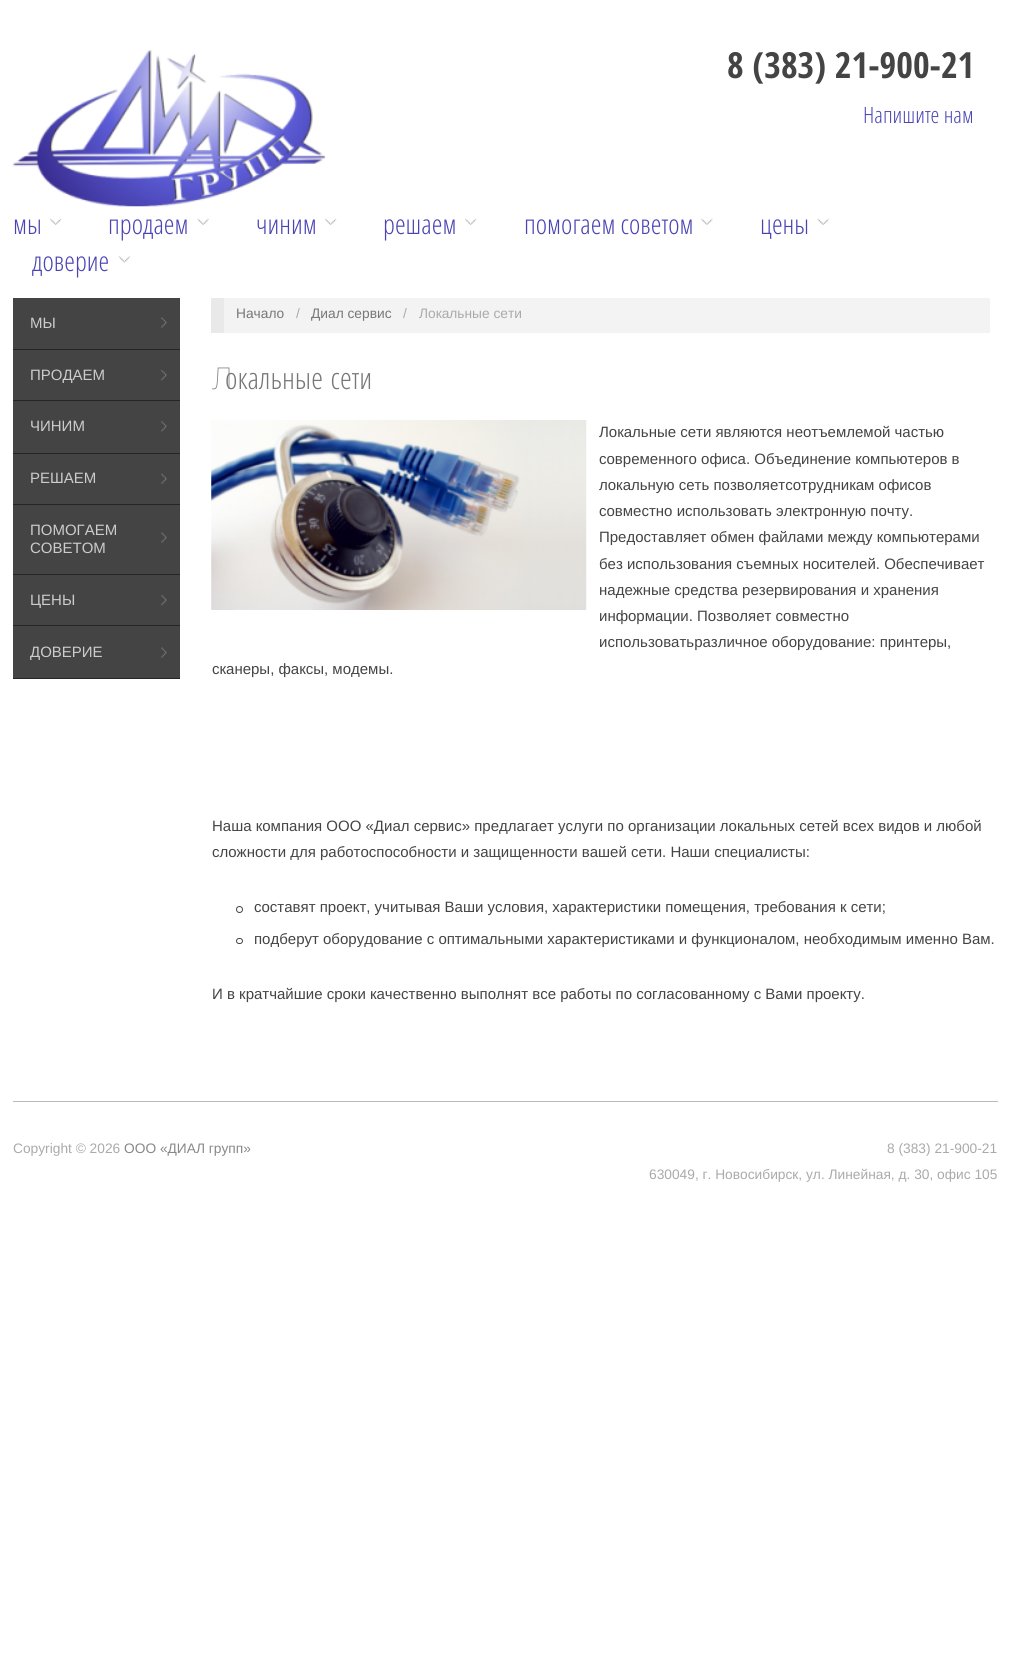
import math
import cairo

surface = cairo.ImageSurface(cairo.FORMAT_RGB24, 1010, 1665)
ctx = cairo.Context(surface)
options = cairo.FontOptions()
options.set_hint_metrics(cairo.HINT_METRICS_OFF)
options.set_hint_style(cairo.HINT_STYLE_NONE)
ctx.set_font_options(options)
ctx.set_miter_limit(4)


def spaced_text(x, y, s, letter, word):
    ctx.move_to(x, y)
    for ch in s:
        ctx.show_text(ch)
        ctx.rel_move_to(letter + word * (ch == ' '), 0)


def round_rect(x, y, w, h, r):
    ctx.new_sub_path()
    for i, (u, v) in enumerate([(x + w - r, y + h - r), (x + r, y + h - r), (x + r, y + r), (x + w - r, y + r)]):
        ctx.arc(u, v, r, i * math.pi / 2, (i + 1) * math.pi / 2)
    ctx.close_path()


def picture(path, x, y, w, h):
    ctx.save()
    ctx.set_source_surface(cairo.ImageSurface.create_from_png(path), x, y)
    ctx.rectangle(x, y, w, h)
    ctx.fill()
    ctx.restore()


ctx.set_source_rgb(1, 1, 1)
ctx.paint()
picture("img1.png", 12, 50, 313, 157)
ctx.select_font_face("Open Sans Condensed", cairo.FONT_SLANT_NORMAL, cairo.FONT_WEIGHT_BOLD)
ctx.set_font_size(36)
ctx.set_source_rgb(0.267, 0.267, 0.267)
ctx.move_to(727, 78)
ctx.show_text("8 (383) 21-900-21")
ctx.select_font_face("Open Sans Condensed Light")
ctx.set_font_size(22.5)
ctx.set_source_rgb(0.29, 0.267, 0.702)
ctx.move_to(863, 123)
ctx.show_text("Напишите нам")
ctx.set_font_size(27.25)
ctx.move_to(13, 234)
ctx.show_text("мы")
picture("img2.png", 50, 218, 12, 7)
ctx.move_to(108, 234)
ctx.show_text("продаем")
picture("img3.png", 197, 218, 12, 7)
ctx.move_to(256, 234)
ctx.show_text("чиним")
picture("img2.png", 325, 218, 12, 7)
ctx.move_to(383, 234)
ctx.show_text("решаем")
picture("img4.png", 465, 218, 12, 7)
ctx.move_to(524, 234)
ctx.show_text("помогаем советом")
picture("img5.png", 701, 218, 12, 7)
ctx.move_to(760, 234)
ctx.show_text("цены")
picture("img6.png", 817, 218, 12, 7)
ctx.move_to(32, 271)
ctx.show_text("доверие")
picture("img7.png", 118, 256, 12, 7)
ctx.set_source_rgb(0.267, 0.267, 0.267)
ctx.rectangle(13, 298, 167, 380)
ctx.fill()
ctx.set_source_rgb(0.145, 0.145, 0.145)
ctx.rectangle(13, 349, 167, 1)
ctx.fill()
ctx.select_font_face("Liberation Sans")
ctx.set_font_size(15)
ctx.set_source_rgb(0.8, 0.8, 0.8)
ctx.move_to(30, 328)
ctx.show_text("МЫ")
picture("img8.png", 161, 317, 6, 11)
ctx.set_source_rgb(0.145, 0.145, 0.145)
ctx.rectangle(13, 400, 167, 1)
ctx.fill()
ctx.set_source_rgb(0.8, 0.8, 0.8)
ctx.move_to(30, 380)
ctx.show_text("ПРОДАЕМ")
picture("img9.png", 161, 370, 6, 11)
ctx.set_source_rgb(0.145, 0.145, 0.145)
ctx.rectangle(13, 453, 167, 1)
ctx.fill()
ctx.set_source_rgb(0.8, 0.8, 0.8)
ctx.move_to(30, 431)
ctx.show_text("ЧИНИМ")
picture("img10.png", 161, 421, 6, 11)
ctx.set_source_rgb(0.145, 0.145, 0.145)
ctx.rectangle(13, 504, 167, 1)
ctx.fill()
ctx.set_source_rgb(0.8, 0.8, 0.8)
ctx.move_to(30, 483)
ctx.show_text("РЕШАЕМ")
picture("img11.png", 161, 473, 6, 11)
ctx.set_source_rgb(0.145, 0.145, 0.145)
ctx.rectangle(13, 574, 167, 1)
ctx.fill()
ctx.set_source_rgb(0.8, 0.8, 0.8)
ctx.move_to(30, 535)
ctx.show_text("ПОМОГАЕМ")
picture("img8.png", 161, 532, 6, 11)
ctx.move_to(30, 553)
ctx.show_text("СОВЕТОМ")
ctx.set_source_rgb(0.145, 0.145, 0.145)
ctx.rectangle(13, 625, 167, 1)
ctx.fill()
ctx.set_source_rgb(0.8, 0.8, 0.8)
ctx.move_to(30, 605)
ctx.show_text("ЦЕНЫ")
picture("img9.png", 161, 595, 6, 11)
ctx.set_source_rgb(0.145, 0.145, 0.145)
ctx.rectangle(13, 678, 167, 1)
ctx.fill()
ctx.set_source_rgb(0.8, 0.8, 0.8)
ctx.move_to(30, 657)
ctx.show_text("ДОВЕРИЕ")
picture("img8.png", 161, 647, 6, 11)
ctx.set_source_rgb(0.953, 0.953, 0.953)
ctx.rectangle(224, 298, 766, 35)
ctx.fill()
ctx.set_source_rgb(0.914, 0.914, 0.914)
ctx.rectangle(211, 298, 13, 35)
ctx.fill()
ctx.set_font_size(13.75)
ctx.set_source_rgb(0.467, 0.467, 0.467)
ctx.move_to(236, 318)
ctx.show_text("Начало")
ctx.set_source_rgb(0.667, 0.667, 0.667)
ctx.move_to(296, 318)
ctx.show_text("/")
ctx.set_source_rgb(0.467, 0.467, 0.467)
ctx.move_to(311, 318)
ctx.show_text("Диал сервис")
ctx.set_source_rgb(0.667, 0.667, 0.667)
ctx.move_to(403, 318)
ctx.show_text("/")
ctx.move_to(419, 318)
ctx.show_text("Локальные сети")
ctx.select_font_face("Noto Sans Thin")
ctx.set_font_size(30)
ctx.set_source_rgb(0.467, 0.467, 0.467)
ctx.move_to(212, 389)
ctx.show_text("Л")
ctx.select_font_face("Open Sans Condensed Light")
spaced_text(225, 389, "окальные сети", 0, 2)
picture("img12.png", 211, 420, 376, 190)
ctx.select_font_face("Liberation Sans")
ctx.set_font_size(15)
ctx.set_source_rgb(0.267, 0.267, 0.267)
ctx.move_to(599, 437)
ctx.show_text("Локальные сети являются неотъемлемой частью")
ctx.move_to(599, 464)
ctx.show_text("современного офиса. Объединение компьютеров в")
ctx.move_to(599, 490)
ctx.show_text("локальную сеть позволяетсотрудникам офисов")
ctx.move_to(599, 516)
ctx.show_text("совместно использовать электронную почту.")
ctx.move_to(599, 542)
ctx.show_text("Предоставляет обмен файлами между компьютерами")
ctx.move_to(599, 569)
ctx.show_text("без использования съемных носителей. Обеспечивает")
ctx.move_to(599, 595)
ctx.show_text("надежные средства резервирования и хранения")
ctx.move_to(599, 621)
ctx.show_text("информации. Позволяет совместно")
ctx.move_to(599, 647)
ctx.show_text("использоватьразличное оборудование: принтеры,")
ctx.move_to(212, 674)
ctx.show_text("сканеры, факсы, модемы.")
ctx.move_to(212, 831)
ctx.show_text("Наша компания ООО «Диал сервис» предлагает услуги по организации локальных сетей всех видов и любой")
ctx.move_to(212, 857)
ctx.show_text("сложности для работоспособности и защищенности вашей сети. Наши специалисты:")
ctx.new_path()
ctx.arc(239.5, 909.5, 3, 0, 2 * math.pi)
ctx.set_line_width(1)
ctx.stroke()
ctx.move_to(254, 912)
ctx.show_text("составят проект, учитывая Ваши условия, характеристики помещения, требования к сети;")
round_rect(236.5, 938.5, 6, 5, 2.5)
ctx.stroke()
ctx.move_to(254, 944)
ctx.show_text("подберут оборудование с оптимальными характеристиками и функционалом, необходимым именно Вам.")
ctx.move_to(212, 999)
ctx.show_text("И в кратчайшие сроки качественно выполнят все работы по согласованному с Вами проекту.")
ctx.set_source_rgb(0.733, 0.733, 0.733)
ctx.rectangle(13, 1101, 985, 1)
ctx.fill()
ctx.set_font_size(13.75)
ctx.set_source_rgb(0.667, 0.667, 0.667)
ctx.move_to(13, 1153)
ctx.show_text("Copyright © 2026")
ctx.set_source_rgb(0.533, 0.533, 0.533)
ctx.move_to(124, 1153)
ctx.show_text("ООО «ДИАЛ групп»")
ctx.set_source_rgb(0.667, 0.667, 0.667)
ctx.move_to(887, 1153)
ctx.show_text("8 (383) 21-900-21")
ctx.move_to(649, 1179)
ctx.show_text("630049, г. Новосибирск, ул. Линейная, д. 30, офис 105")
surface.write_to_png("page.png")
